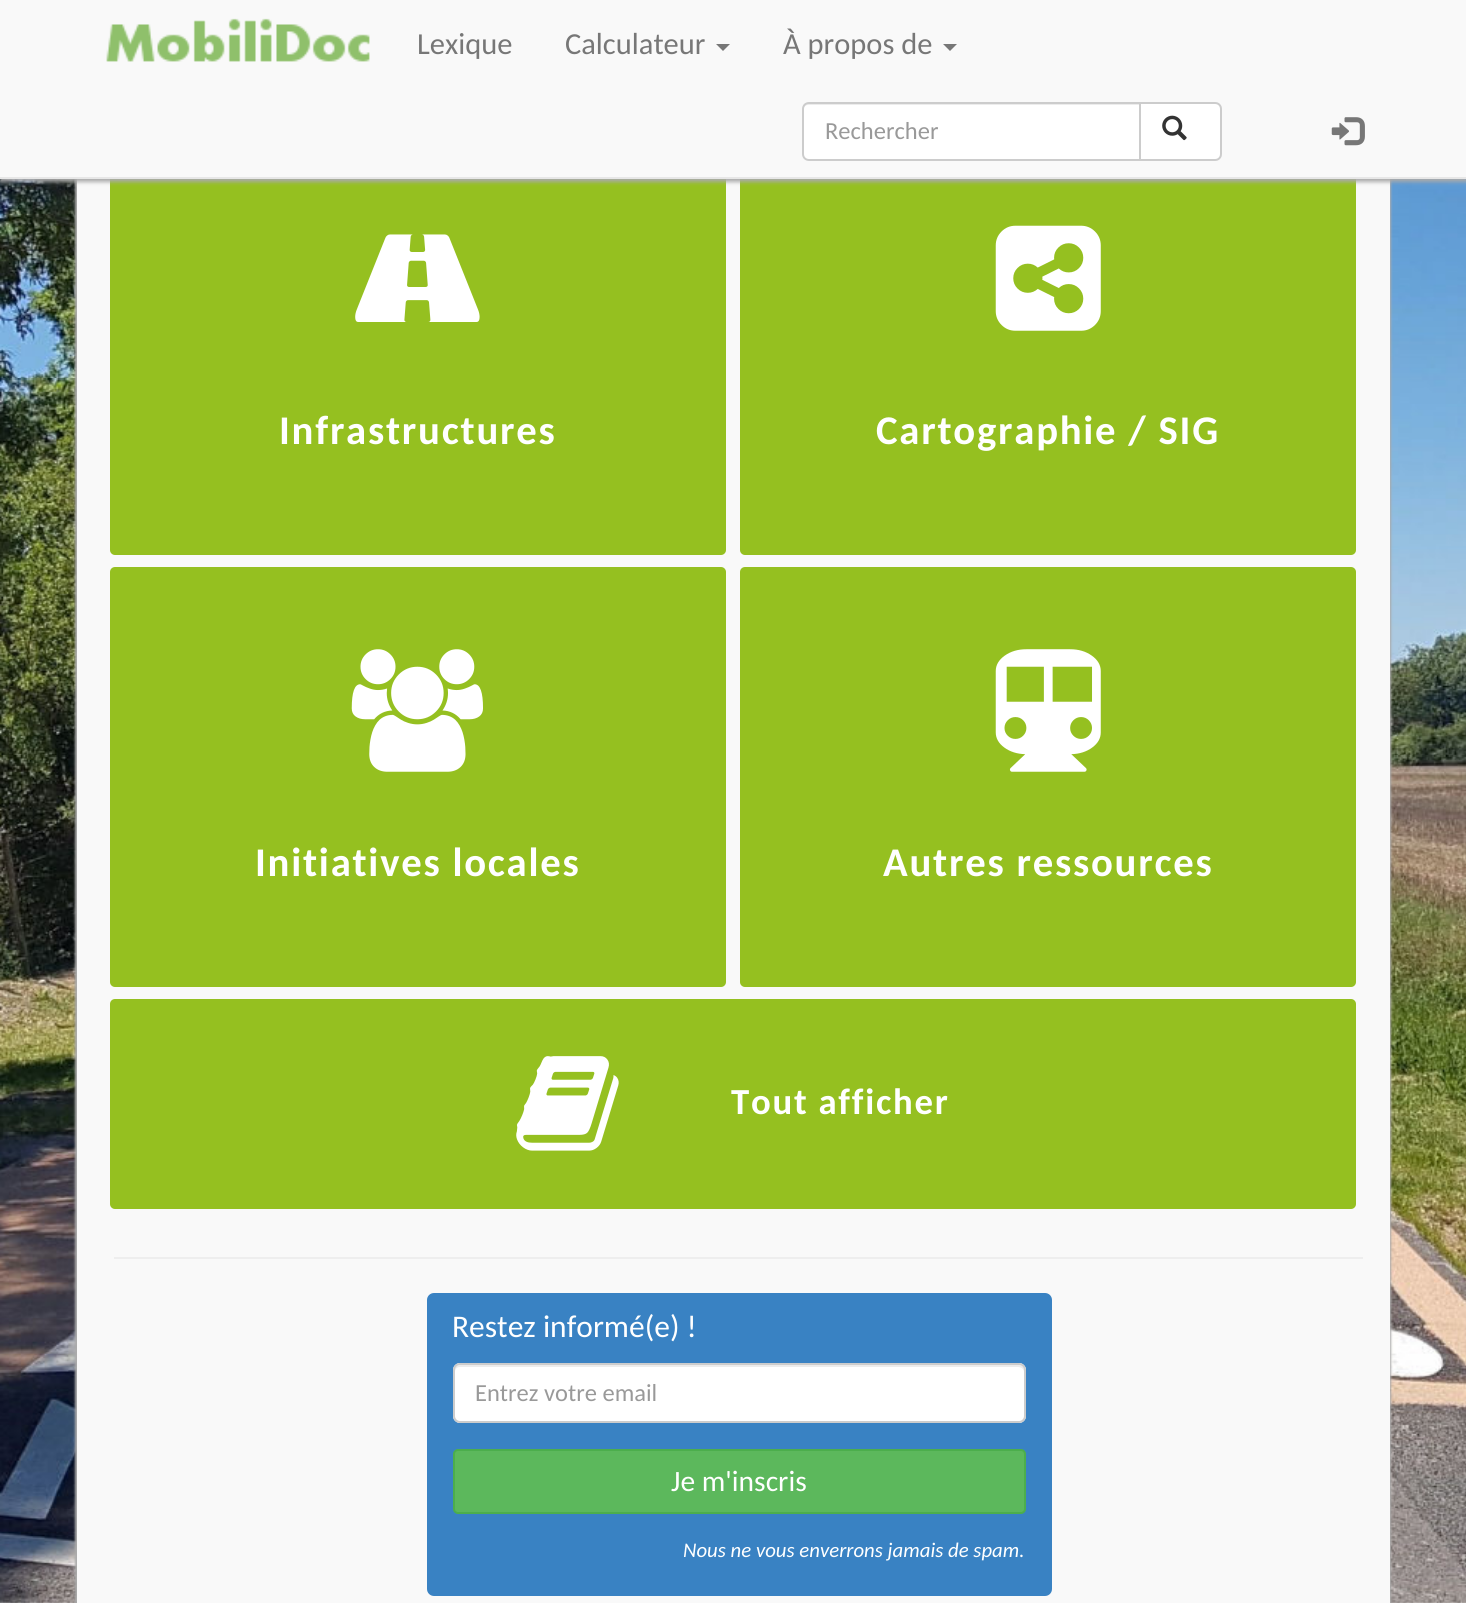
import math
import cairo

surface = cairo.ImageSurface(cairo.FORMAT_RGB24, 1466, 1603)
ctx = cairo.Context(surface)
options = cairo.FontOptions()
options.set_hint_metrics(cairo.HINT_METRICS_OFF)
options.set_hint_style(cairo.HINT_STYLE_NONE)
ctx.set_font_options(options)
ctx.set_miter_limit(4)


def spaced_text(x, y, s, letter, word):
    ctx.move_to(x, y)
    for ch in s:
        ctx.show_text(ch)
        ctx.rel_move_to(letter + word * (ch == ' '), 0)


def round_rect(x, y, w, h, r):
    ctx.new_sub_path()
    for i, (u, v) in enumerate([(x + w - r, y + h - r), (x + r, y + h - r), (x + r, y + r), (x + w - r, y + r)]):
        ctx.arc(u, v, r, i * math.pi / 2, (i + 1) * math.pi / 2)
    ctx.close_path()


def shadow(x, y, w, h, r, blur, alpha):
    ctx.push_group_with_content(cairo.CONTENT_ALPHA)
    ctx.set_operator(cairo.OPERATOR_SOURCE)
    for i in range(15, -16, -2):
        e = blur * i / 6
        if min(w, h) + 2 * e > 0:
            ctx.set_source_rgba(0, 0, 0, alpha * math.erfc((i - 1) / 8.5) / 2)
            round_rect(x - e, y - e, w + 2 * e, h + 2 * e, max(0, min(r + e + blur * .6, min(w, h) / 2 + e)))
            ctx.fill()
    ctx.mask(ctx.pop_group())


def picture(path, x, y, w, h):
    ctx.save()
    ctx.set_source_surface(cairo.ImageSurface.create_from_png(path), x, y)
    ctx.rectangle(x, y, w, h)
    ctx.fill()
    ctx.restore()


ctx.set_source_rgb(1, 1, 1)
ctx.paint()
picture("img1.png", 0, 179, 1466, 1424)
ctx.set_source_rgb(0.667, 0.667, 0.667)
shadow(75, -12, 1316, 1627, 9, 1, 1)
ctx.set_source_rgb(0.973, 0.973, 0.973)
ctx.rectangle(77, 179, 1313, 1424)
ctx.fill()
ctx.set_source_rgb(0.584, 0.753, 0.125)
round_rect(110, 135, 616, 420, 5)
ctx.fill()
round_rect(740, 135, 616, 420, 5)
ctx.fill()
ctx.set_source_rgb(0.667, 0.667, 0.667)
shadow(0, 4, 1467, 178, 0, 2, 1)
ctx.set_source_rgb(0.973, 0.973, 0.973)
ctx.rectangle(0, 0, 1466, 177)
ctx.fill()
ctx.set_source_rgb(0.906, 0.906, 0.906)
ctx.rectangle(0, 177, 1466, 2)
ctx.fill()
picture("img2.png", 106, 18, 264, 44)
ctx.select_font_face("Carlito")
ctx.set_font_size(30.5)
ctx.set_source_rgb(0.467, 0.467, 0.467)
ctx.move_to(417, 54)
ctx.show_text("Lexique")
ctx.move_to(565, 54)
ctx.show_text("Calculateur")
ctx.new_path()
ctx.move_to(716, 44)
ctx.line_to(730, 44)
ctx.line_to(723, 51)
ctx.close_path()
ctx.fill()
ctx.move_to(783, 54)
ctx.show_text("À propos de")
ctx.new_path()
ctx.move_to(943, 44)
ctx.line_to(957, 44)
ctx.line_to(950, 51)
ctx.close_path()
ctx.fill()
ctx.set_source_rgb(1, 1, 1)
ctx.new_path()
ctx.move_to(809, 102)
ctx.line_to(1141, 102)
ctx.line_to(1141, 161)
ctx.line_to(809, 161)
ctx.curve_to(805, 161, 802, 158, 802, 154)
ctx.line_to(802, 109)
ctx.curve_to(802, 105, 805, 102, 809, 102)
ctx.close_path()
ctx.fill()
ctx.set_source_rgb(0.925, 0.925, 0.925)
ctx.new_path()
ctx.move_to(808, 105)
ctx.line_to(1139, 105)
ctx.line_to(1139, 103)
ctx.line_to(808, 103)
ctx.curve_to(805, 103, 803, 105, 803, 108)
ctx.line_to(803, 110)
ctx.curve_to(803, 107, 806, 105, 808, 105)
ctx.close_path()
ctx.fill()
ctx.new_path()
ctx.move_to(809, 103)
ctx.line_to(1140, 103)
ctx.line_to(1140, 160)
ctx.line_to(809, 160)
ctx.curve_to(805.5, 160, 803, 157.5, 803, 154)
ctx.line_to(803, 109)
ctx.curve_to(803, 105.5, 805.5, 103, 809, 103)
ctx.close_path()
ctx.set_source_rgb(0.8, 0.8, 0.8)
ctx.stroke()
ctx.set_font_size(24.5)
ctx.set_source_rgb(0.6, 0.6, 0.6)
ctx.move_to(825, 139)
ctx.show_text("Rechercher")
ctx.set_source_rgb(1, 1, 1)
ctx.new_path()
ctx.move_to(1140, 103)
ctx.line_to(1215, 103)
ctx.curve_to(1218.5, 103, 1221, 105.5, 1221, 109)
ctx.line_to(1221, 154)
ctx.curve_to(1221, 157.5, 1218.5, 160, 1215, 160)
ctx.line_to(1140, 160)
ctx.close_path()
ctx.fill_preserve()
ctx.set_source_rgb(0.8, 0.8, 0.8)
ctx.stroke()
picture("img3.png", 1162, 115, 25, 26)
picture("img4.png", 1331, 117, 34, 29)
picture("img5.png", 355, 234, 125, 88)
ctx.select_font_face("Carlito", cairo.FONT_SLANT_NORMAL, cairo.FONT_WEIGHT_BOLD)
ctx.set_font_size(40.75)
ctx.set_source_rgb(1, 1, 1)
spaced_text(279, 444, "Infrastructures", 1.75, 0)
picture("img6.png", 995, 225, 106, 106)
spaced_text(876, 444, "Cartographie / SIG", 1.75, 0)
ctx.set_source_rgb(0.584, 0.753, 0.125)
round_rect(110, 567, 616, 420, 5)
ctx.fill()
picture("img7.png", 351, 649, 132, 123)
ctx.set_source_rgb(1, 1, 1)
spaced_text(255, 876, "Initiatives locales", 1.75, 0)
ctx.set_source_rgb(0.584, 0.753, 0.125)
round_rect(740, 567, 616, 420, 5)
ctx.fill()
picture("img8.png", 995, 649, 106, 123)
ctx.set_source_rgb(1, 1, 1)
spaced_text(883, 876, "Autres ressources", 1.75, 0)
ctx.set_source_rgb(0.584, 0.753, 0.125)
round_rect(110, 999, 1246, 210, 5)
ctx.fill()
picture("img9.png", 516, 1056, 103, 95)
ctx.set_font_size(36.75)
ctx.set_source_rgb(1, 1, 1)
spaced_text(731, 1114, "Tout afficher", 1.75, 0)
ctx.set_source_rgb(0.933, 0.933, 0.933)
ctx.rectangle(114, 1257, 1249, 2)
ctx.fill()
ctx.set_source_rgb(0.224, 0.51, 0.765)
round_rect(427, 1293, 625, 303, 7)
ctx.fill()
ctx.select_font_face("Carlito")
ctx.set_font_size(31.5)
ctx.set_source_rgb(1, 1, 1)
ctx.move_to(452, 1337)
ctx.show_text("Restez informé(e) !")
round_rect(453, 1363, 573, 60, 7)
ctx.fill()
ctx.set_source_rgb(0.925, 0.925, 0.925)
ctx.new_path()
ctx.move_to(460, 1367)
ctx.line_to(1018, 1367)
ctx.curve_to(1021, 1367, 1024, 1369, 1024, 1372)
ctx.line_to(1024, 1370)
ctx.curve_to(1024, 1367, 1022, 1365, 1019, 1365)
ctx.line_to(460, 1365)
ctx.curve_to(457, 1365, 455, 1367, 455, 1370)
ctx.line_to(455, 1372)
ctx.curve_to(455, 1369, 457, 1367, 460, 1367)
ctx.close_path()
ctx.fill()
round_rect(454, 1364, 571, 58, 6)
ctx.set_source_rgb(0.8, 0.8, 0.8)
ctx.stroke()
ctx.set_font_size(24.5)
ctx.set_source_rgb(0.6, 0.6, 0.6)
ctx.move_to(475, 1401)
ctx.show_text("Entrez votre email")
ctx.set_source_rgb(0.361, 0.722, 0.361)
round_rect(454, 1450, 571, 63, 4)
ctx.fill_preserve()
ctx.set_source_rgb(0.298, 0.682, 0.298)
ctx.stroke()
ctx.set_font_size(29.5)
ctx.set_source_rgb(1, 1, 1)
ctx.move_to(671, 1491)
ctx.show_text("Je m'inscris")
ctx.select_font_face("Carlito", cairo.FONT_SLANT_ITALIC)
ctx.set_font_size(20.8)
ctx.move_to(683, 1557)
ctx.show_text("Nous ne vous enverrons jamais de spam.")
surface.write_to_png("page.png")
